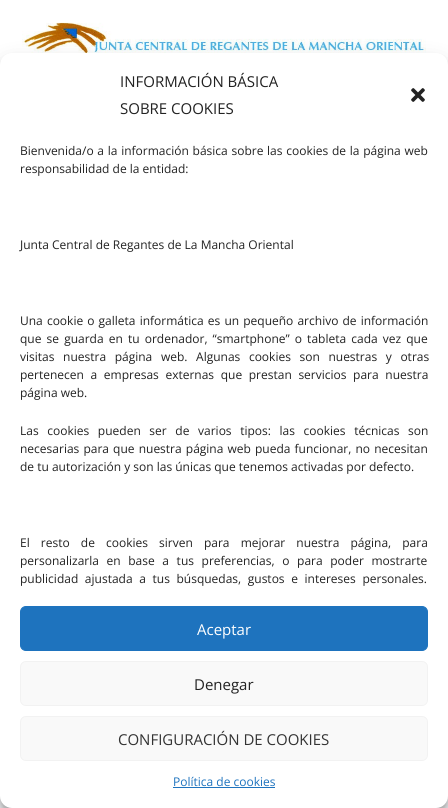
import math
import cairo

surface = cairo.ImageSurface(cairo.FORMAT_RGB24, 448, 808)
ctx = cairo.Context(surface)
options = cairo.FontOptions()
options.set_hint_metrics(cairo.HINT_METRICS_OFF)
options.set_hint_style(cairo.HINT_STYLE_NONE)
ctx.set_font_options(options)
ctx.set_miter_limit(4)


def spaced_text(x, y, s, letter, word):
    ctx.move_to(x, y)
    for ch in s:
        ctx.show_text(ch)
        ctx.rel_move_to(letter + word * (ch == ' '), 0)


def round_rect(x, y, w, h, r):
    ctx.new_sub_path()
    for i, (u, v) in enumerate([(x + w - r, y + h - r), (x + r, y + h - r), (x + r, y + r), (x + w - r, y + r)]):
        ctx.arc(u, v, r, i * math.pi / 2, (i + 1) * math.pi / 2)
    ctx.close_path()


def shadow(x, y, w, h, r, blur, alpha):
    ctx.push_group_with_content(cairo.CONTENT_ALPHA)
    ctx.set_operator(cairo.OPERATOR_SOURCE)
    for i in range(15, -16, -2):
        e = blur * i / 6
        if min(w, h) + 2 * e > 0:
            ctx.set_source_rgba(0, 0, 0, alpha * math.erfc((i - 1) / 8.5) / 2)
            round_rect(x - e, y - e, w + 2 * e, h + 2 * e, max(0, min(r + e + blur * .6, min(w, h) / 2 + e)))
            ctx.fill()
    ctx.mask(ctx.pop_group())


def picture(path, x, y, w, h):
    ctx.save()
    ctx.set_source_surface(cairo.ImageSurface.create_from_png(path), x, y)
    ctx.rectangle(x, y, w, h)
    ctx.fill()
    ctx.restore()


ctx.set_source_rgb(1, 1, 1)
ctx.paint()
picture("img1.png", 0, 796, 448, 12)
picture("img2.png", 22, 22, 404, 31)
ctx.set_source_rgb(0, 0, 0)
shadow(0, 59, 448, 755, 12, 3, 0.23)
shadow(0, 63, 448, 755, 12, 10, 0.19)
ctx.set_source_rgb(0.502, 0.502, 0.502)
shadow(378, 734, 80, 60, 2, 2.5, 1)
ctx.set_source_rgb(1, 1, 1)
round_rect(0, 53, 448, 755, 12)
ctx.fill()
ctx.select_font_face("Open Sans")
ctx.set_font_size(15)
ctx.set_source_rgb(0.133, 0.133, 0.133)
ctx.move_to(120, 87)
ctx.show_text("INFORMACIÓN BÁSICA")
ctx.move_to(120, 114)
ctx.show_text("SOBRE COOKIES")
picture("img3.png", 411, 88, 14, 14)
ctx.set_font_size(12)
spaced_text(20, 155, "Bienvenida/o a la información básica sobre las cookies de la página web", 0, 0.6)
ctx.move_to(20, 173)
ctx.show_text("responsabilidad de la entidad:")
ctx.move_to(20, 249)
ctx.show_text("Junta Central de Regantes de La Mancha Oriental")
spaced_text(20, 325, "Una cookie o galleta informática es un pequeño archivo de información", 0, 1)
spaced_text(20, 343, "que se guarda en tu ordenador, “smartphone” o tableta cada vez que", 0, 2)
spaced_text(20, 361, "visitas nuestra página web. Algunas cookies son nuestras y otras", 0, 5.5)
spaced_text(20, 379, "pertenecen a empresas externas que prestan servicios para nuestra", 0, 3.5)
ctx.move_to(20, 397)
ctx.show_text("página web.")
spaced_text(20, 435, "Las cookies pueden ser de varios tipos: las cookies técnicas son", 0, 5.5)
spaced_text(20, 453, "necesarias para que nuestra página web pueda funcionar, no necesitan", 0, 1)
ctx.move_to(20, 471)
ctx.show_text("de tu autorización y son las únicas que tenemos activadas por defecto.")
spaced_text(20, 547, "El resto de cookies sirven para mejorar nuestra página, para", 0, 8)
spaced_text(20, 565, "personalizarla en base a tus preferencias, o para poder mostrarte", 0, 4.5)
spaced_text(20, 583, "publicidad ajustada a tus búsquedas, gustos e intereses personales.", 0, 3.5)
ctx.set_source_rgb(0.118, 0.451, 0.745)
round_rect(20.5, 606.5, 407, 44, 5.5)
ctx.fill_preserve()
ctx.set_line_width(1)
ctx.stroke()
ctx.set_font_size(15)
ctx.set_source_rgb(1, 1, 1)
ctx.move_to(197, 635)
ctx.show_text("Aceptar")
ctx.set_source_rgb(0.976, 0.976, 0.976)
round_rect(20.5, 661.5, 407, 44, 5.5)
ctx.fill_preserve()
ctx.set_source_rgb(0.949, 0.949, 0.949)
ctx.stroke()
ctx.set_source_rgb(0.133, 0.133, 0.133)
ctx.move_to(194, 690)
ctx.show_text("Denegar")
ctx.set_source_rgb(0.976, 0.976, 0.976)
round_rect(20.5, 716.5, 407, 44, 5.5)
ctx.fill_preserve()
ctx.set_source_rgb(0.949, 0.949, 0.949)
ctx.stroke()
ctx.set_source_rgb(0.2, 0.2, 0.2)
ctx.move_to(118, 745)
ctx.show_text("CONFIGURACIÓN DE COOKIES")
ctx.set_font_size(12)
ctx.set_source_rgb(0.118, 0.451, 0.745)
ctx.move_to(173, 786)
ctx.show_text("Política de cookies")
ctx.rectangle(173, 787, 102, 1)
ctx.fill()
surface.write_to_png("page.png")
